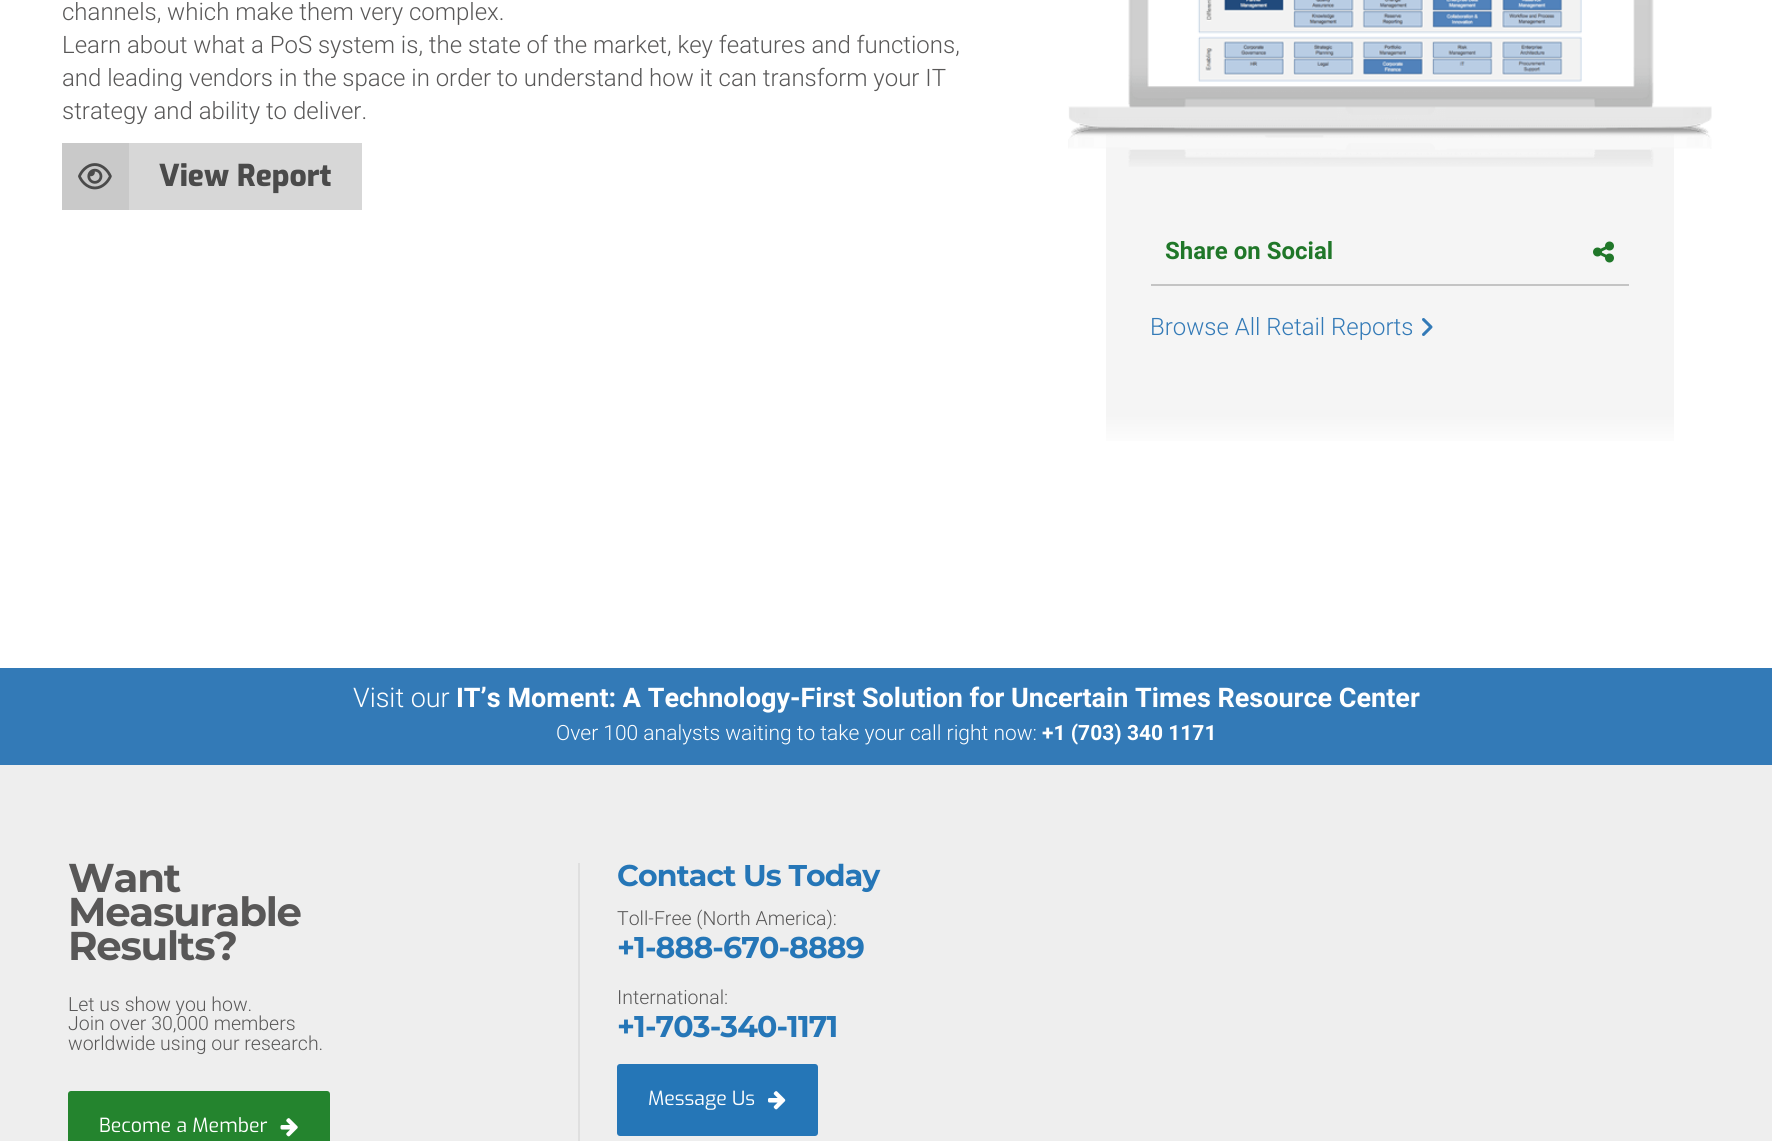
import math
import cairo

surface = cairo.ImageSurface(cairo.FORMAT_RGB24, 1772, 1141)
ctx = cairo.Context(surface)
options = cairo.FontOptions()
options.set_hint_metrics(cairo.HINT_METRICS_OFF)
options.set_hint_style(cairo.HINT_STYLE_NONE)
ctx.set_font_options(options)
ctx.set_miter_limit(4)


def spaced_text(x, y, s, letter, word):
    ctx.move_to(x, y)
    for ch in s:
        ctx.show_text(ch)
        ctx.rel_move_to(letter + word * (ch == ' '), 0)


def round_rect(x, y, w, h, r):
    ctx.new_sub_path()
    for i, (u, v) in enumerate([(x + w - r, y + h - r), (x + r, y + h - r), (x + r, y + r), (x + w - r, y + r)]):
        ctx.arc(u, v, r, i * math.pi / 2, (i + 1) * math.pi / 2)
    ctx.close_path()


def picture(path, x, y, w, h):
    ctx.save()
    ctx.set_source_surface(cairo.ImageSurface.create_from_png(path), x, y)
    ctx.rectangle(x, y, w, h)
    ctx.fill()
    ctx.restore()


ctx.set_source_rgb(1, 1, 1)
ctx.paint()
ctx.select_font_face("Roboto Light")
ctx.set_font_size(24)
ctx.set_source_rgb(0.345, 0.341, 0.341)
ctx.move_to(62, 20)
ctx.show_text("channels, which make them very complex.")
ctx.move_to(62, 53)
ctx.show_text("Learn about what a PoS system is, the state of the market, key features and functions,")
ctx.move_to(62, 86)
ctx.show_text("and leading vendors in the space in order to understand how it can transform your IT")
ctx.move_to(62, 119)
ctx.show_text("strategy and ability to deliver.")
ctx.set_source_rgb(0.788, 0.788, 0.788)
ctx.rectangle(62, 143, 67, 67)
ctx.fill()
ctx.set_source_rgb(0.843, 0.843, 0.843)
ctx.rectangle(129, 143, 233, 67)
ctx.fill()
picture("img1.png", 78, 163, 34, 27)
ctx.select_font_face("Exo ExtraBold")
ctx.set_font_size(30)
ctx.set_source_rgb(0.29, 0.29, 0.29)
ctx.move_to(159, 186)
ctx.show_text("View Report")
gradient = cairo.LinearGradient(1390, 133, 1390, 450)
gradient.add_color_stop_rgba(0.89, 0.961, 0.961, 0.961, 1)
gradient.add_color_stop_rgba(1, 1, 1, 1, 1)
ctx.set_source(gradient)
ctx.rectangle(1106, 134, 568, 307)
ctx.fill()
picture("img2.png", 1068, 0, 644, 167)
ctx.set_source_rgb(0.769, 0.769, 0.769)
ctx.rectangle(1151, 284, 478, 2)
ctx.fill()
ctx.select_font_face("Roboto", cairo.FONT_SLANT_NORMAL, cairo.FONT_WEIGHT_BOLD)
ctx.set_font_size(24)
ctx.set_source_rgb(0.125, 0.467, 0.161)
ctx.move_to(1165, 259)
ctx.show_text("Share on Social")
picture("img3.png", 1593, 241, 21, 22)
ctx.select_font_face("Roboto Light")
ctx.set_source_rgb(0.2, 0.478, 0.718)
ctx.move_to(1150, 335)
ctx.show_text("Browse All Retail Reports")
picture("img4.png", 1422, 318, 11, 18)
ctx.rectangle(0, 668, 1772, 97)
ctx.fill()
ctx.set_font_size(27)
ctx.set_source_rgb(1, 1, 1)
ctx.move_to(353, 707)
ctx.show_text("Visit our")
ctx.select_font_face("Roboto", cairo.FONT_SLANT_NORMAL, cairo.FONT_WEIGHT_BOLD)
ctx.move_to(456, 707)
ctx.show_text("IT’s Moment: A Technology-First Solution for Uncertain Times Resource Center")
ctx.select_font_face("Roboto Light")
ctx.set_font_size(21)
ctx.move_to(556, 740)
ctx.show_text("Over 100 analysts waiting to take your call right now:")
ctx.select_font_face("Roboto", cairo.FONT_SLANT_NORMAL, cairo.FONT_WEIGHT_BOLD)
ctx.move_to(1042, 740)
ctx.show_text("+1 (703) 340 1171")
ctx.set_source_rgb(0.933, 0.933, 0.933)
ctx.rectangle(0, 765, 1772, 376)
ctx.fill()
ctx.select_font_face("Montserrat Thin")
ctx.set_font_size(40.25)
ctx.set_source_rgb(0.345, 0.341, 0.341)
spaced_text(68, 892, "Want", -1.25, 0)
spaced_text(68, 926, "Measurable", -1.25, 0)
spaced_text(68, 960, "Results?", -1.25, 0)
ctx.select_font_face("Roboto Light")
ctx.set_font_size(19.5)
ctx.move_to(68, 1011)
ctx.show_text("Let us show you how.")
ctx.move_to(68, 1030)
ctx.show_text("Join over 30,000 members")
ctx.move_to(68, 1050)
ctx.show_text("worldwide using our research.")
ctx.set_source_rgb(0.141, 0.518, 0.18)
round_rect(69, 1092, 260, 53, 2)
ctx.fill_preserve()
ctx.stroke()
ctx.select_font_face("Exo")
ctx.set_source_rgb(1, 1, 1)
ctx.move_to(99, 1132)
ctx.show_text("Become a Member")
picture("img5.png", 280, 1118, 18, 19)
ctx.set_source_rgb(0.875, 0.875, 0.875)
ctx.rectangle(578, 863, 2, 278)
ctx.fill()
ctx.select_font_face("Montserrat Thin")
ctx.set_font_size(30)
ctx.set_source_rgb(0.145, 0.463, 0.718)
spaced_text(617, 886, "Contact Us Today", -0.9, 0)
ctx.select_font_face("Roboto Light")
ctx.set_font_size(19.5)
ctx.set_source_rgb(0.345, 0.341, 0.341)
ctx.move_to(617, 925)
ctx.show_text("Toll-Free (North America):")
ctx.select_font_face("Montserrat Thin")
ctx.set_font_size(30)
ctx.set_source_rgb(0.145, 0.463, 0.718)
spaced_text(617, 958, "+1-888-670-8889", -0.9, 0)
ctx.select_font_face("Roboto Light")
ctx.set_font_size(19.5)
ctx.set_source_rgb(0.345, 0.341, 0.341)
ctx.move_to(617, 1004)
ctx.show_text("International:")
ctx.select_font_face("Montserrat Thin")
ctx.set_font_size(30)
ctx.set_source_rgb(0.145, 0.463, 0.718)
spaced_text(617, 1037, "+1-703-340-1171", -0.9, 0)
round_rect(618, 1065, 199, 70, 2)
ctx.fill_preserve()
ctx.stroke()
ctx.select_font_face("Exo")
ctx.set_font_size(19.5)
ctx.set_source_rgb(1, 1, 1)
ctx.move_to(648, 1105)
ctx.show_text("Message Us")
picture("img6.png", 768, 1091, 18, 19)
surface.write_to_png("page.png")
